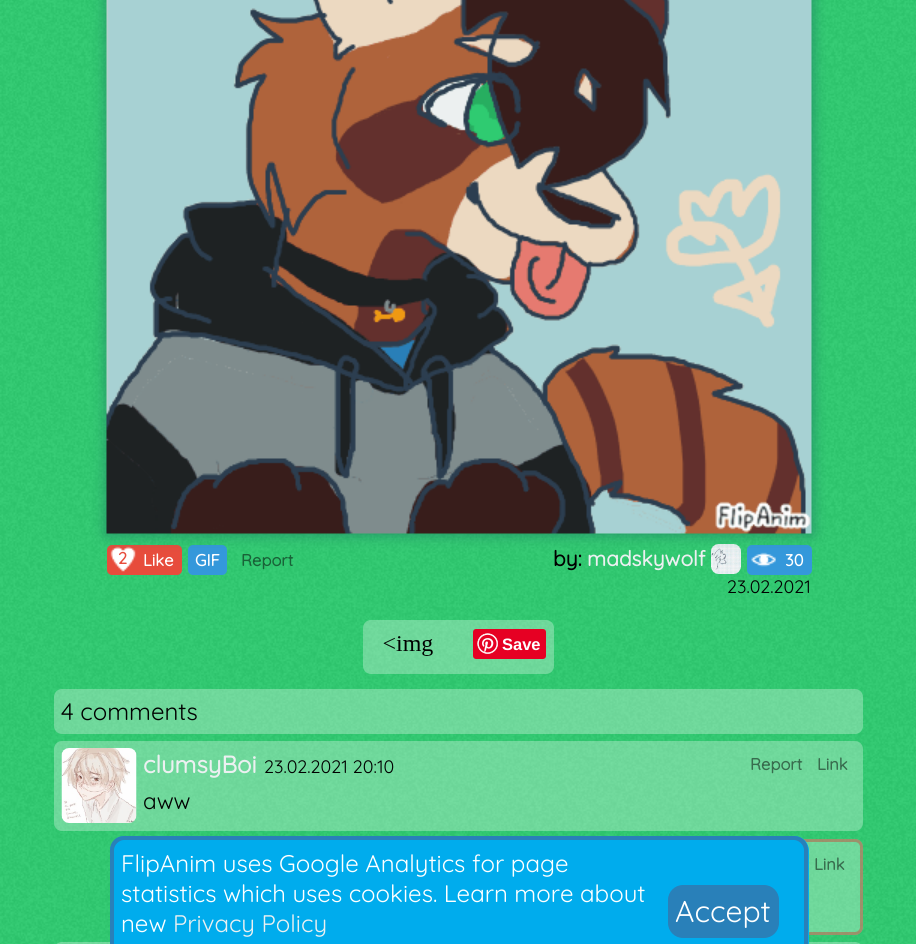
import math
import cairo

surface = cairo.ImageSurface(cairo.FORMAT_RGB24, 916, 944)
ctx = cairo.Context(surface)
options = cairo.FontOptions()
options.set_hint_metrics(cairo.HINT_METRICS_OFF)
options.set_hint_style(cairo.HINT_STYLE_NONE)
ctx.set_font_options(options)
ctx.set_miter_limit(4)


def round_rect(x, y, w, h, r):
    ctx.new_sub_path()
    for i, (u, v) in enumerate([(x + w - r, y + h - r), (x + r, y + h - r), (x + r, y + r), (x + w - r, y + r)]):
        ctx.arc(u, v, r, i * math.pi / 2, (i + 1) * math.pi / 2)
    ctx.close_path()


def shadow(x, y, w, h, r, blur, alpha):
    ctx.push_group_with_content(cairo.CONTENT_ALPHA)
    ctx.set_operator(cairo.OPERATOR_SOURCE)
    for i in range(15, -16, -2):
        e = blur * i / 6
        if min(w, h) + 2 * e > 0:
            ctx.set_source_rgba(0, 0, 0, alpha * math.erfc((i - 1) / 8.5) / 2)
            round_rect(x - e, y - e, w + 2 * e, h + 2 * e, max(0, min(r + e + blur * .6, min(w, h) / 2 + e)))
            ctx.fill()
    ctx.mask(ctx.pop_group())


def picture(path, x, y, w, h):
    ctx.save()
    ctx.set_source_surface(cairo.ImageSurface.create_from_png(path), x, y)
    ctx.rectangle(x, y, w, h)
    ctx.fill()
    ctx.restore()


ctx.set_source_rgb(0.18, 0.8, 0.443)
ctx.paint()
picture("img1.png", 0, 0, 916, 944)
ctx.set_source_rgb(0.906, 0.298, 0.235)
round_rect(107, 545, 75, 30, 5)
ctx.fill()
ctx.set_source_rgb(0.204, 0.596, 0.859)
round_rect(188, 545, 39, 30, 5)
ctx.fill()
picture("img4.png", 711, 544, 30, 30)
round_rect(747, 545, 65, 30, 5)
ctx.fill()
ctx.set_source_rgb(0.141, 0.545, 0.404)
shadow(107, -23, 705, 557, 0, 7.5, 1)
ctx.set_source_rgba(0.153, 0.682, 0.376, 0.5)
ctx.rectangle(107, 0, 705, 534)
ctx.fill()
picture("img2.png", 106, 0, 706, 534)
picture("img3.png", 110, 546, 26, 26)
ctx.select_font_face("Quicksand", cairo.FONT_SLANT_NORMAL, cairo.FONT_WEIGHT_BOLD)
ctx.set_font_size(16.5)
ctx.set_source_rgb(0.906, 0.298, 0.235)
ctx.move_to(118, 564)
ctx.show_text("2")
ctx.set_source_rgb(1, 1, 1)
ctx.move_to(143, 566)
ctx.show_text("Like")
ctx.move_to(195, 566)
ctx.show_text("GIF")
ctx.set_source_rgb(0.098, 0.388, 0.22)
ctx.move_to(241, 566)
ctx.show_text("Report")
ctx.set_font_size(21)
ctx.set_source_rgb(0, 0, 0)
ctx.move_to(553, 566)
ctx.show_text("by:")
ctx.set_source_rgb(0.925, 0.941, 0.945)
ctx.move_to(587, 566)
ctx.show_text("madskywolf")
picture("img5.png", 751, 552, 25, 15)
ctx.set_font_size(16.5)
ctx.set_source_rgb(1, 1, 1)
ctx.move_to(785, 566)
ctx.show_text("30")
ctx.select_font_face("Quicksand Light")
ctx.set_font_size(18)
ctx.set_source_rgb(0, 0, 0)
ctx.move_to(727, 593)
ctx.show_text("23.02.2021")
ctx.set_source_rgba(1, 1, 1, 0.3)
round_rect(363, 620, 191, 54, 8)
ctx.fill()
picture("img6.png", 383, 636, 50, 20)
ctx.set_source_rgb(0.902, 0, 0.137)
round_rect(473, 629, 73, 30, 3)
ctx.fill()
picture("img7.png", 477, 633, 21, 21)
ctx.select_font_face("Liberation Sans", cairo.FONT_SLANT_NORMAL, cairo.FONT_WEIGHT_BOLD)
ctx.set_font_size(16.5)
ctx.set_source_rgb(1, 1, 1)
ctx.move_to(502, 650)
ctx.show_text("Save")
ctx.set_source_rgba(1, 1, 1, 0.3)
round_rect(54, 689, 809, 45, 8)
ctx.fill()
ctx.select_font_face("Quicksand Light")
ctx.set_font_size(24)
ctx.set_source_rgb(0, 0, 0)
ctx.move_to(61, 720)
ctx.show_text("4 comments")
ctx.set_source_rgba(1, 1, 1, 0.3)
round_rect(54, 741, 809, 90, 8)
ctx.fill()
picture("img8.png", 61, 748, 76, 75)
ctx.select_font_face("Quicksand", cairo.FONT_SLANT_NORMAL, cairo.FONT_WEIGHT_BOLD)
ctx.set_source_rgb(0.925, 0.941, 0.945)
ctx.move_to(143, 773)
ctx.show_text("clumsyBoi")
ctx.select_font_face("Quicksand Light")
ctx.set_font_size(18)
ctx.set_source_rgb(0, 0, 0)
ctx.move_to(264, 773)
ctx.show_text("23.02.2021 20:10")
ctx.select_font_face("Quicksand", cairo.FONT_SLANT_NORMAL, cairo.FONT_WEIGHT_BOLD)
ctx.set_font_size(16.5)
ctx.set_source_rgb(0.22, 0.424, 0.306)
ctx.move_to(750, 770)
ctx.show_text("Report")
ctx.move_to(817, 770)
ctx.show_text("Link")
ctx.select_font_face("Quicksand Light")
ctx.set_font_size(22.5)
ctx.set_source_rgb(0, 0, 0)
ctx.move_to(143, 809)
ctx.show_text("aww")
ctx.set_source_rgba(1, 1, 1, 0.3)
round_rect(129, 839, 734, 96, 8)
ctx.fill()
round_rect(130.5, 840.5, 731, 93, 6.5)
ctx.set_source_rgba(0.784, 0.298, 0.235, 0.5)
ctx.set_line_width(3)
ctx.stroke()
ctx.select_font_face("Quicksand", cairo.FONT_SLANT_NORMAL, cairo.FONT_WEIGHT_BOLD)
ctx.set_font_size(16.5)
ctx.set_source_rgb(0.22, 0.424, 0.306)
ctx.move_to(814, 870)
ctx.show_text("Link")
ctx.set_source_rgba(1, 1, 1, 0.3)
round_rect(54, 942, 809, 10, 8)
ctx.fill()
ctx.set_source_rgb(0, 0.675, 0.929)
ctx.new_path()
ctx.move_to(125, 836)
ctx.line_to(794, 836)
ctx.curve_to(802.5, 836, 809, 842.5, 809, 851)
ctx.line_to(809, 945)
ctx.line_to(110, 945)
ctx.line_to(110, 851)
ctx.curve_to(110, 842.5, 116.5, 836, 125, 836)
ctx.close_path()
ctx.fill()
ctx.set_source_rgb(0.161, 0.502, 0.725)
ctx.set_fill_rule(cairo.FILL_RULE_EVEN_ODD)
ctx.new_path()
ctx.move_to(124, 836)
ctx.line_to(794, 836)
ctx.curve_to(802, 836, 808, 842, 808, 850)
ctx.line_to(808, 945)
ctx.line_to(110, 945)
ctx.line_to(110, 850)
ctx.curve_to(110, 842, 116, 836, 124, 836)
ctx.close_path()
ctx.move_to(124, 840)
ctx.line_to(794, 840)
ctx.curve_to(799, 840, 804, 845, 804, 850)
ctx.line_to(804, 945)
ctx.line_to(114, 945)
ctx.line_to(114, 850)
ctx.curve_to(114, 845, 119, 840, 124, 840)
ctx.close_path()
ctx.fill()
ctx.select_font_face("Quicksand Light")
ctx.set_font_size(24)
ctx.set_source_rgb(1, 1, 1)
ctx.move_to(121, 872)
ctx.show_text("FlipAnim uses Google Analytics for page")
ctx.move_to(121, 902)
ctx.show_text("statistics which uses cookies. Learn more about")
ctx.move_to(121, 932)
ctx.show_text("new")
ctx.set_source_rgb(0.925, 0.941, 0.945)
ctx.move_to(173, 932)
ctx.show_text("Privacy Policy")
ctx.set_source_rgb(0.161, 0.502, 0.725)
round_rect(668, 885, 111, 53, 15)
ctx.fill()
ctx.set_font_size(30)
ctx.set_source_rgb(1, 1, 1)
ctx.move_to(675, 922)
ctx.show_text("Accept")
surface.write_to_png("page.png")
